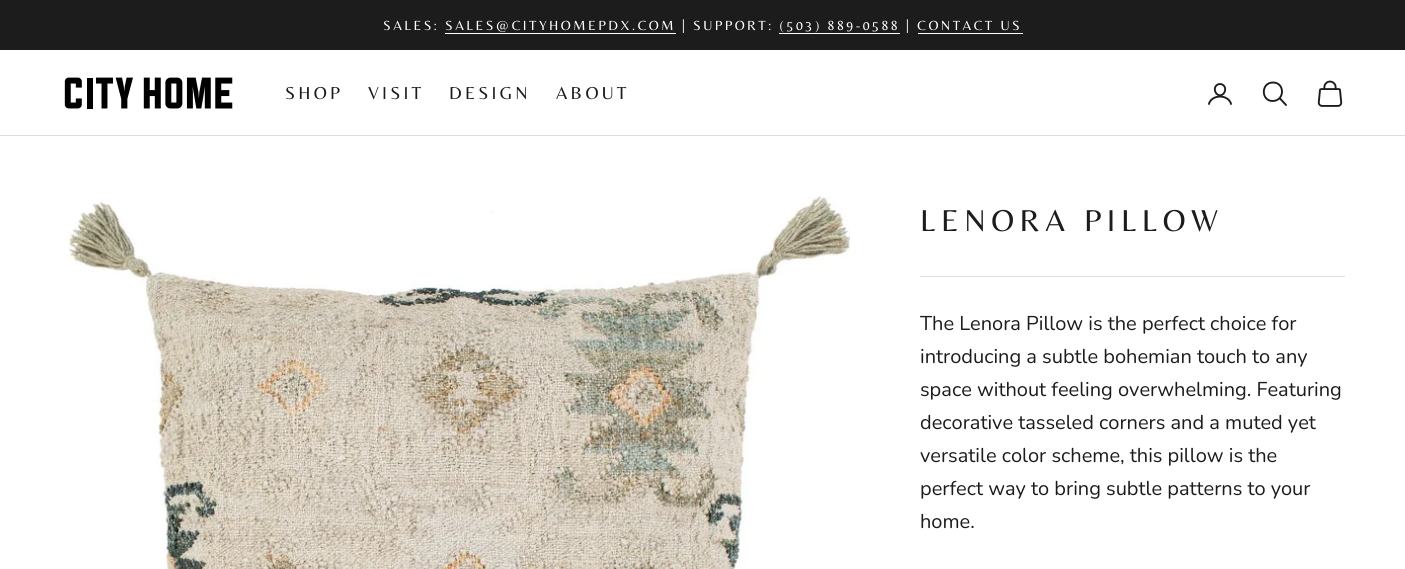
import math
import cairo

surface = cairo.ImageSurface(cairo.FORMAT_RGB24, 1405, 569)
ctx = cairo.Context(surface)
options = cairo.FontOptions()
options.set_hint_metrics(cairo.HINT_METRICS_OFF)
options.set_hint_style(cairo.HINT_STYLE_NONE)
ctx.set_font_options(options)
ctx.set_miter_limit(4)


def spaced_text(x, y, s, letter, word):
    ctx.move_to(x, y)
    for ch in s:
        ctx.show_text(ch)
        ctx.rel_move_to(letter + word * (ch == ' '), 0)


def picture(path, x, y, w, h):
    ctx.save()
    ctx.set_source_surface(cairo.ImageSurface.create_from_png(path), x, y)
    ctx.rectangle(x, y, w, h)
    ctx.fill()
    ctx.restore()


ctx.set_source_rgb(1, 1, 1)
ctx.paint()
ctx.set_source_rgb(0.11, 0.11, 0.11)
ctx.rectangle(0, 0, 1405, 50)
ctx.fill()
ctx.select_font_face("Belleza")
ctx.set_font_size(13.75)
ctx.set_source_rgb(1, 1, 1)
spaced_text(383, 30, "SALES: SALES@CITYHOMEPDX.COM | SUPPORT: (503) 889-0588 | CONTACT US", 2.48, 0)
ctx.rectangle(445, 33, 231, 1)
ctx.fill()
ctx.rectangle(779, 33, 121, 1)
ctx.fill()
ctx.rectangle(918, 33, 105, 1)
ctx.fill()
ctx.set_source_rgb(0.867, 0.867, 0.867)
ctx.rectangle(0, 135, 1405, 1)
ctx.fill()
picture("img1.png", 64, 77, 169, 32)
ctx.set_font_size(18)
ctx.set_source_rgb(0.11, 0.11, 0.11)
spaced_text(285, 99, "SHOP", 3.25, 0)
spaced_text(368, 99, "VISIT", 3.25, 0)
spaced_text(449, 99, "DESIGN", 3.25, 0)
spaced_text(556, 99, "ABOUT", 3.25, 0)
picture("img2.png", 1207, 83, 26, 22)
ctx.new_path()
ctx.move_to(1273, 82.5)
ctx.curve_to(1260.5, 82.5, 1261, 101.5, 1273, 101)
ctx.curve_to(1285, 100.5, 1285, 82.5, 1273, 82.5)
ctx.close_path()
ctx.set_line_width(1.9)
ctx.stroke()
ctx.new_path()
ctx.move_to(1280, 98.5)
ctx.line_to(1286, 105)
ctx.set_line_cap(cairo.LINE_CAP_ROUND)
ctx.stroke()
picture("img3.png", 1317, 80, 26, 27)
picture("img4.png", 68, 196, 782, 373)
ctx.set_font_size(31.4)
spaced_text(920, 231, "LENORA PILLOW", 5.6, 0)
ctx.set_source_rgb(0.867, 0.867, 0.867)
ctx.rectangle(920, 276, 425, 1)
ctx.fill()
ctx.select_font_face("Nunito")
ctx.set_font_size(20)
ctx.set_source_rgb(0.11, 0.11, 0.11)
ctx.move_to(920, 330)
ctx.show_text("The Lenora Pillow is the perfect choice for")
ctx.move_to(920, 363)
ctx.show_text("introducing a subtle bohemian touch to any")
ctx.move_to(920, 396)
ctx.show_text("space without feeling overwhelming. Featuring")
ctx.move_to(920, 429)
ctx.show_text("decorative tasseled corners and a muted yet")
ctx.move_to(920, 462)
ctx.show_text("versatile color scheme, this pillow is the")
ctx.move_to(920, 495)
ctx.show_text("perfect way to bring subtle patterns to your")
ctx.move_to(920, 528)
ctx.show_text("home.")
surface.write_to_png("page.png")
